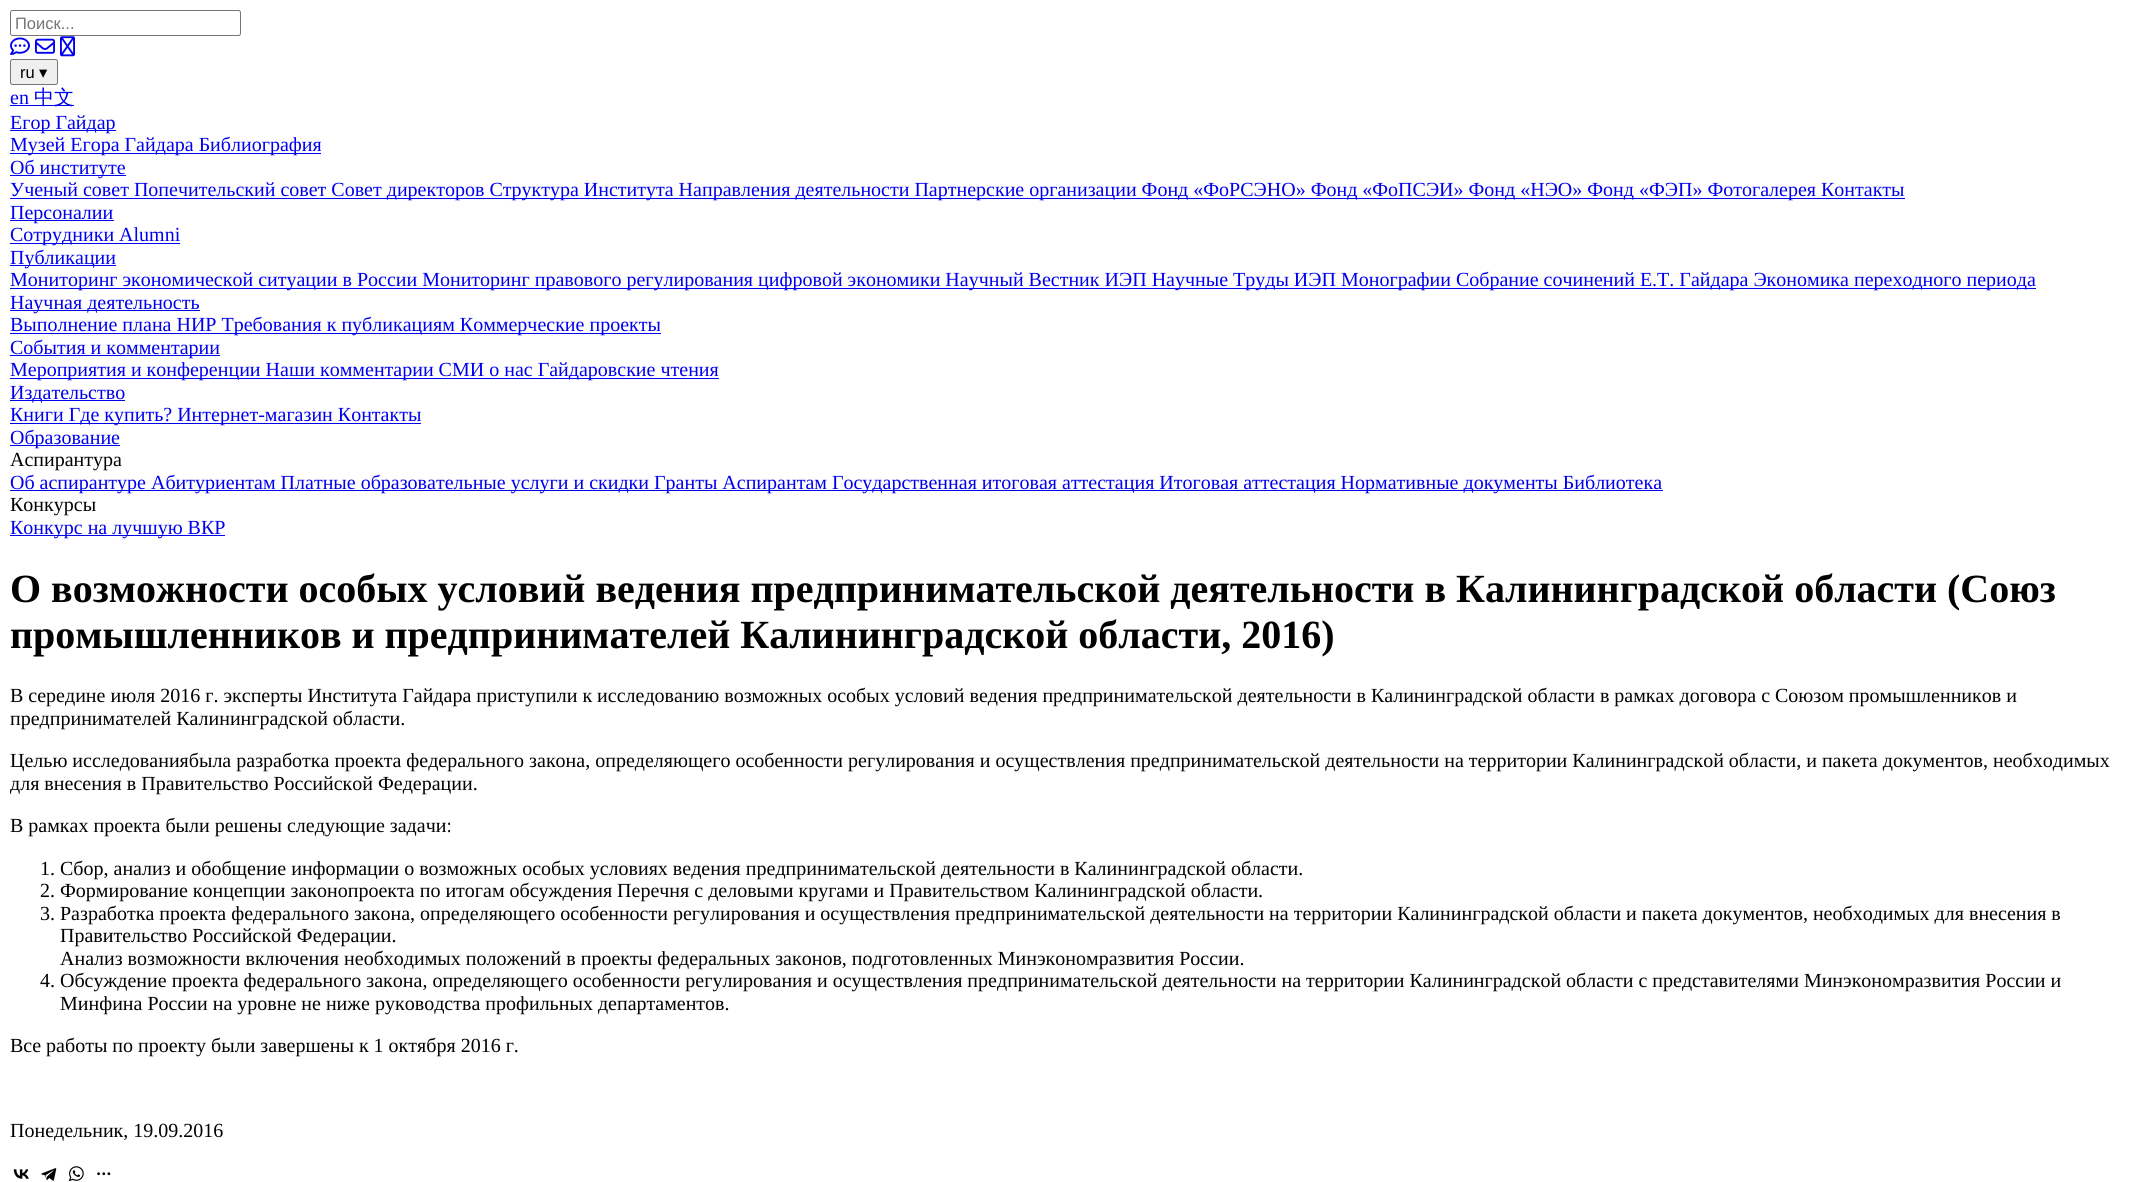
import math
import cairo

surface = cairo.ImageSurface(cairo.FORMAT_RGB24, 2134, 1182)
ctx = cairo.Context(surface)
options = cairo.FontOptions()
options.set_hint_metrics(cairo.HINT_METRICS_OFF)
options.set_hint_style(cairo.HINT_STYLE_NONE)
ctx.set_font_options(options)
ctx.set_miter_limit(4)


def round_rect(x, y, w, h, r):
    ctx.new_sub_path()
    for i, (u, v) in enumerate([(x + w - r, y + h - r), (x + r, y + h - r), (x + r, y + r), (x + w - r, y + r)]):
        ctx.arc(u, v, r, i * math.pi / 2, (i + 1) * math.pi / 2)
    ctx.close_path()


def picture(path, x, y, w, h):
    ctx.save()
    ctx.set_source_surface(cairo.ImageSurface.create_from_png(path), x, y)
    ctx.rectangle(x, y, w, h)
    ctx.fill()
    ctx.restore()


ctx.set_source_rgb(1, 1, 1)
ctx.paint()
round_rect(10.5, 10.5, 230, 25, 2)
ctx.set_source_rgb(0.463, 0.463, 0.463)
ctx.set_line_width(1)
ctx.stroke()
ctx.select_font_face("Liberation Sans")
ctx.set_font_size(16.5)
ctx.set_source_rgb(0.459, 0.459, 0.459)
ctx.move_to(15, 29)
ctx.show_text("Поиск...")
picture("img1.png", 10, 37, 20, 18)
picture("img2.png", 35, 38, 20, 16)
picture("img3.png", 60, 36, 15, 21)
ctx.set_source_rgb(0.937, 0.937, 0.937)
round_rect(10.5, 59.5, 47, 25, 2)
ctx.fill_preserve()
ctx.set_source_rgb(0.463, 0.463, 0.463)
ctx.stroke()
ctx.set_source_rgb(0, 0, 0)
ctx.move_to(20, 78)
ctx.show_text("ru")
ctx.select_font_face("DejaVu Sans")
ctx.move_to(39, 78)
ctx.show_text("▾")
ctx.select_font_face("Liberation Serif")
ctx.set_font_size(20)
ctx.set_source_rgb(0, 0, 0.933)
ctx.move_to(10, 104)
ctx.show_text("en")
ctx.rectangle(10, 105, 64, 1)
ctx.fill()
ctx.select_font_face("WenQuanYi Zen Hei Medium")
ctx.move_to(34, 104)
ctx.show_text("中文")
ctx.rectangle(10, 130, 106, 1)
ctx.fill()
ctx.select_font_face("Liberation Serif")
ctx.move_to(10, 129)
ctx.show_text("Егор Гайдар")
ctx.rectangle(10, 153, 311, 1)
ctx.fill()
ctx.move_to(10, 151)
ctx.show_text("Музей Егора Гайдара Библиография")
ctx.rectangle(10, 175, 116, 1)
ctx.fill()
ctx.move_to(10, 174)
ctx.show_text("Об институте")
ctx.rectangle(10, 198, 1895, 1)
ctx.fill()
ctx.move_to(10, 196)
ctx.show_text("Ученый совет Попечительский совет Совет директоров Структура Института Направления деятельности Партнерские организации Фонд «ФоРСЭНО» Фонд «ФоПСЭИ» Фонд «НЭО» Фонд «ФЭП» Фотогалерея Контакты")
ctx.rectangle(10, 220, 104, 1)
ctx.fill()
ctx.move_to(10, 219)
ctx.show_text("Персоналии")
ctx.rectangle(10, 243, 170, 1)
ctx.fill()
ctx.move_to(10, 241)
ctx.show_text("Сотрудники Alumni")
ctx.rectangle(10, 265, 106, 1)
ctx.fill()
ctx.move_to(10, 264)
ctx.show_text("Публикации")
ctx.rectangle(10, 288, 2026, 1)
ctx.fill()
ctx.move_to(10, 286)
ctx.show_text("Мониторинг экономической ситуации в России Мониторинг правового регулирования цифровой экономики Научный Вестник ИЭП Научные Труды ИЭП Монографии Собрание сочинений Е.Т. Гайдара Экономика переходного периода")
ctx.rectangle(10, 310, 190, 1)
ctx.fill()
ctx.move_to(10, 309)
ctx.show_text("Научная деятельность")
ctx.rectangle(10, 333, 651, 1)
ctx.fill()
ctx.move_to(10, 331)
ctx.show_text("Выполнение плана НИР Требования к публикациям Коммерческие проекты")
ctx.rectangle(10, 355, 210, 1)
ctx.fill()
ctx.move_to(10, 354)
ctx.show_text("События и комментарии")
ctx.rectangle(10, 378, 709, 1)
ctx.fill()
ctx.move_to(10, 376)
ctx.show_text("Мероприятия и конференции Наши комментарии СМИ о нас Гайдаровские чтения")
ctx.rectangle(10, 400, 115, 1)
ctx.fill()
ctx.move_to(10, 399)
ctx.show_text("Издательство")
ctx.rectangle(10, 423, 411, 1)
ctx.fill()
ctx.move_to(10, 421)
ctx.show_text("Книги Где купить? Интернет-магазин Контакты")
ctx.rectangle(10, 445, 110, 1)
ctx.fill()
ctx.move_to(10, 444)
ctx.show_text("Образование")
ctx.set_source_rgb(0, 0, 0)
ctx.move_to(10, 466)
ctx.show_text("Аспирантура")
ctx.set_source_rgb(0, 0, 0.933)
ctx.rectangle(10, 490, 1653, 1)
ctx.fill()
ctx.move_to(10, 489)
ctx.show_text("Об аспирантуре Абитуриентам Платные образовательные услуги и скидки Гранты Аспирантам Государственная итоговая аттестация Итоговая аттестация Нормативные документы Библиотека")
ctx.set_source_rgb(0, 0, 0)
ctx.move_to(10, 511)
ctx.show_text("Конкурсы")
ctx.set_source_rgb(0, 0, 0.933)
ctx.rectangle(10, 535, 215, 1)
ctx.fill()
ctx.move_to(10, 534)
ctx.show_text("Конкурс на лучшую ВКР")
ctx.select_font_face("Liberation Serif", cairo.FONT_SLANT_NORMAL, cairo.FONT_WEIGHT_BOLD)
ctx.set_font_size(40)
ctx.set_source_rgb(0, 0, 0)
ctx.move_to(10, 602)
ctx.show_text("О возможности особых условий ведения предпринимательской деятельности в Калининградской области (Союз")
ctx.move_to(10, 648)
ctx.show_text("промышленников и предпринимателей Калининградской области, 2016)")
ctx.select_font_face("Liberation Serif")
ctx.set_font_size(20)
ctx.move_to(10, 702)
ctx.show_text("В середине июля 2016 г. эксперты Института Гайдара приступили к исследованию возможных особых условий ведения предпринимательской деятельности в Калининградской области в рамках договора с Союзом промышленников и")
ctx.move_to(10, 725)
ctx.show_text("предпринимателей Калининградской области.")
ctx.move_to(10, 767)
ctx.show_text("Целью исследованиябыла разработка проекта федерального закона, определяющего особенности регулирования и осуществления предпринимательской деятельности на территории Калининградской области, и пакета документов, необходимых")
ctx.move_to(10, 790)
ctx.show_text("для внесения в Правительство Российской Федерации.")
ctx.move_to(10, 832)
ctx.show_text("В рамках проекта были решены следующие задачи:")
ctx.move_to(40, 875)
ctx.show_text("1. Сбор, анализ и обобщение информации о возможных особых условиях ведения предпринимательской деятельности в Калининградской области.")
ctx.move_to(40, 897)
ctx.show_text("2. Формирование концепции законопроекта по итогам обсуждения Перечня с деловыми кругами и Правительством Калининградской области.")
ctx.move_to(40, 920)
ctx.show_text("3. Разработка проекта федерального закона, определяющего особенности регулирования и осуществления предпринимательской деятельности на территории Калининградской области и пакета документов, необходимых для внесения в")
ctx.move_to(60, 942)
ctx.show_text("Правительство Российской Федерации.")
ctx.move_to(60, 965)
ctx.show_text("Анализ возможности включения необходимых положений в проекты федеральных законов, подготовленных Минэкономразвития России.")
ctx.move_to(40, 987)
ctx.show_text("4. Обсуждение проекта федерального закона, определяющего особенности регулирования и осуществления предпринимательской деятельности на территории Калининградской области с представителями Минэкономразвития России и")
ctx.move_to(60, 1010)
ctx.show_text("Минфина России на уровне не ниже руководства профильных департаментов.")
ctx.move_to(10, 1052)
ctx.show_text("Все работы по проекту были завершены к 1 октября 2016 г.")
ctx.move_to(10, 1137)
ctx.show_text("Понедельник, 19.09.2016")
picture("img4.png", 13, 1169, 16, 10)
picture("img5.png", 41, 1168, 16, 13)
picture("img6.png", 68, 1166, 16, 16)
picture("img7.png", 97, 1172, 14, 4)
surface.write_to_png("page.png")
